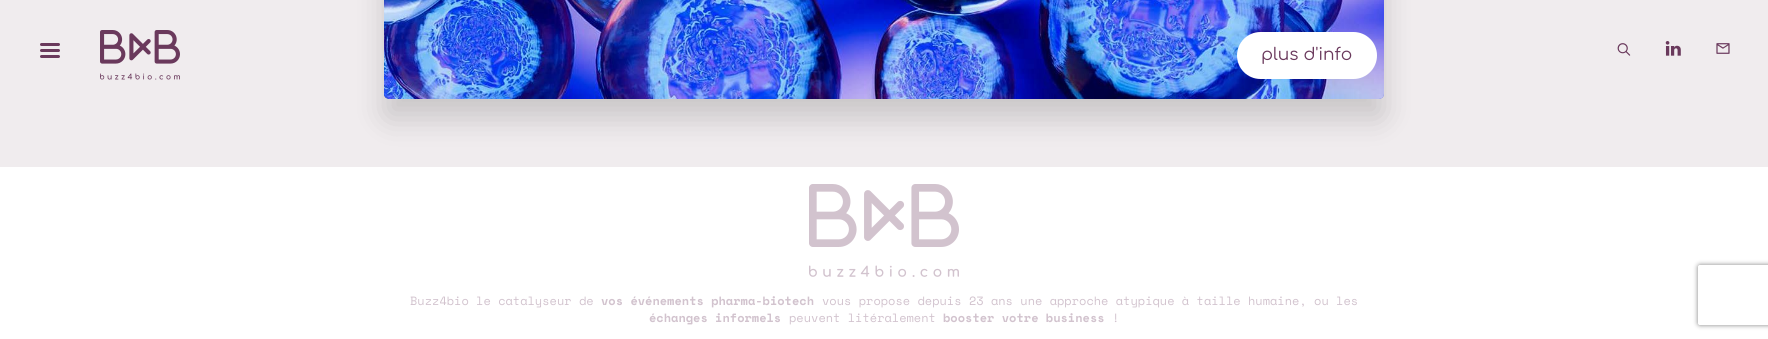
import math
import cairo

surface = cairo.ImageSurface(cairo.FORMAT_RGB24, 1768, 339)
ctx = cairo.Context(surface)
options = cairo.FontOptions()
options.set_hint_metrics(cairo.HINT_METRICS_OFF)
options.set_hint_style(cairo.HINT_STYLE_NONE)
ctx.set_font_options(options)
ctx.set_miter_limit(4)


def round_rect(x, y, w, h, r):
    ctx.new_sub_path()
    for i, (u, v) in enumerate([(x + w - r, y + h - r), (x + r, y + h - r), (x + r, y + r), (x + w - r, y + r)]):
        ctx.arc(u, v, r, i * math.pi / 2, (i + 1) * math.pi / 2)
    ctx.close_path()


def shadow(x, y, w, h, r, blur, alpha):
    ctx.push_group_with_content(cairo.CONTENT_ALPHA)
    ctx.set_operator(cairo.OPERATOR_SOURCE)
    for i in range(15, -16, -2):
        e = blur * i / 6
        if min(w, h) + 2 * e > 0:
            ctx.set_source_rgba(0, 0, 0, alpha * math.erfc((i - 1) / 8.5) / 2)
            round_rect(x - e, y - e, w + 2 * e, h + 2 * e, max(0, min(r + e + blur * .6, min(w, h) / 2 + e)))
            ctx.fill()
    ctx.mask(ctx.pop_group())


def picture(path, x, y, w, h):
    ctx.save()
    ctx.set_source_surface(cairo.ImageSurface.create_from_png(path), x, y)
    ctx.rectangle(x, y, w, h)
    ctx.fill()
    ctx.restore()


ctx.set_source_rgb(0.941, 0.922, 0.933)
ctx.paint()
ctx.set_source_rgb(0.416, 0.224, 0.361)
round_rect(40, 43, 20, 3, 1.5)
ctx.fill()
round_rect(40, 49, 20, 3, 1.5)
ctx.fill()
round_rect(40, 55, 20, 3, 1.5)
ctx.fill()
picture("img1.png", 100, 30, 80, 50)
ctx.set_source_rgb(0, 0, 0)
shadow(384, -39, 1000, 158, 5, 15, 0.16)
picture("img3.png", 384, 94, 1000, 5)
picture("img2.png", 384, 0, 1000, 99)
ctx.set_source_rgb(1, 1, 1)
round_rect(1237, 32, 140, 47, 23.5)
ctx.fill()
ctx.select_font_face("Comfortaa")
ctx.set_font_size(17)
ctx.set_source_rgb(0.416, 0.224, 0.361)
ctx.move_to(1261, 60)
ctx.show_text("plus d'info")
picture("img4.png", 1617, 43, 14, 13)
picture("img5.png", 1665, 41, 16, 15)
picture("img6.png", 1716, 43, 14, 11)
ctx.set_source_rgb(1, 1, 1)
ctx.rectangle(0, 167, 1768, 172)
ctx.fill()
picture("img7.png", 809, 184, 150, 93)
ctx.select_font_face("Space Mono")
ctx.set_font_size(12)
ctx.set_source_rgb(0.824, 0.765, 0.808)
ctx.move_to(410, 305)
ctx.show_text("Buzz4bio le catalyseur de")
ctx.select_font_face("Space Mono", cairo.FONT_SLANT_NORMAL, cairo.FONT_WEIGHT_BOLD)
ctx.move_to(601, 305)
ctx.show_text("vos événements pharma-biotech")
ctx.select_font_face("Space Mono")
ctx.move_to(822, 305)
ctx.show_text("vous propose depuis 23 ans une approche atypique à taille humaine, ou les")
ctx.select_font_face("Space Mono", cairo.FONT_SLANT_NORMAL, cairo.FONT_WEIGHT_BOLD)
ctx.move_to(649, 322)
ctx.show_text("échanges informels")
ctx.select_font_face("Space Mono")
ctx.move_to(789, 322)
ctx.show_text("peuvent litéralement")
ctx.select_font_face("Space Mono", cairo.FONT_SLANT_NORMAL, cairo.FONT_WEIGHT_BOLD)
ctx.move_to(943, 322)
ctx.show_text("booster votre business")
ctx.select_font_face("Space Mono")
ctx.move_to(1112, 322)
ctx.show_text("!")
ctx.save()
ctx.set_fill_rule(cairo.FILL_RULE_EVEN_ODD)
ctx.new_path()
ctx.move_to(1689, 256)
ctx.line_to(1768, 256)
ctx.line_to(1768, 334)
ctx.line_to(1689, 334)
ctx.close_path()
ctx.move_to(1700, 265)
ctx.line_to(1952, 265)
ctx.curve_to(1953, 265, 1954, 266, 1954, 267)
ctx.line_to(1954, 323)
ctx.curve_to(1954, 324, 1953, 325, 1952, 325)
ctx.line_to(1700, 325)
ctx.curve_to(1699, 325, 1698, 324, 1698, 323)
ctx.line_to(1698, 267)
ctx.curve_to(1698, 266, 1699, 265, 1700, 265)
ctx.close_path()
ctx.clip()
ctx.set_source_rgb(0.502, 0.502, 0.502)
shadow(1698, 265, 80, 60, 2, 2.5, 1)
ctx.restore()
surface.write_to_png("page.png")
